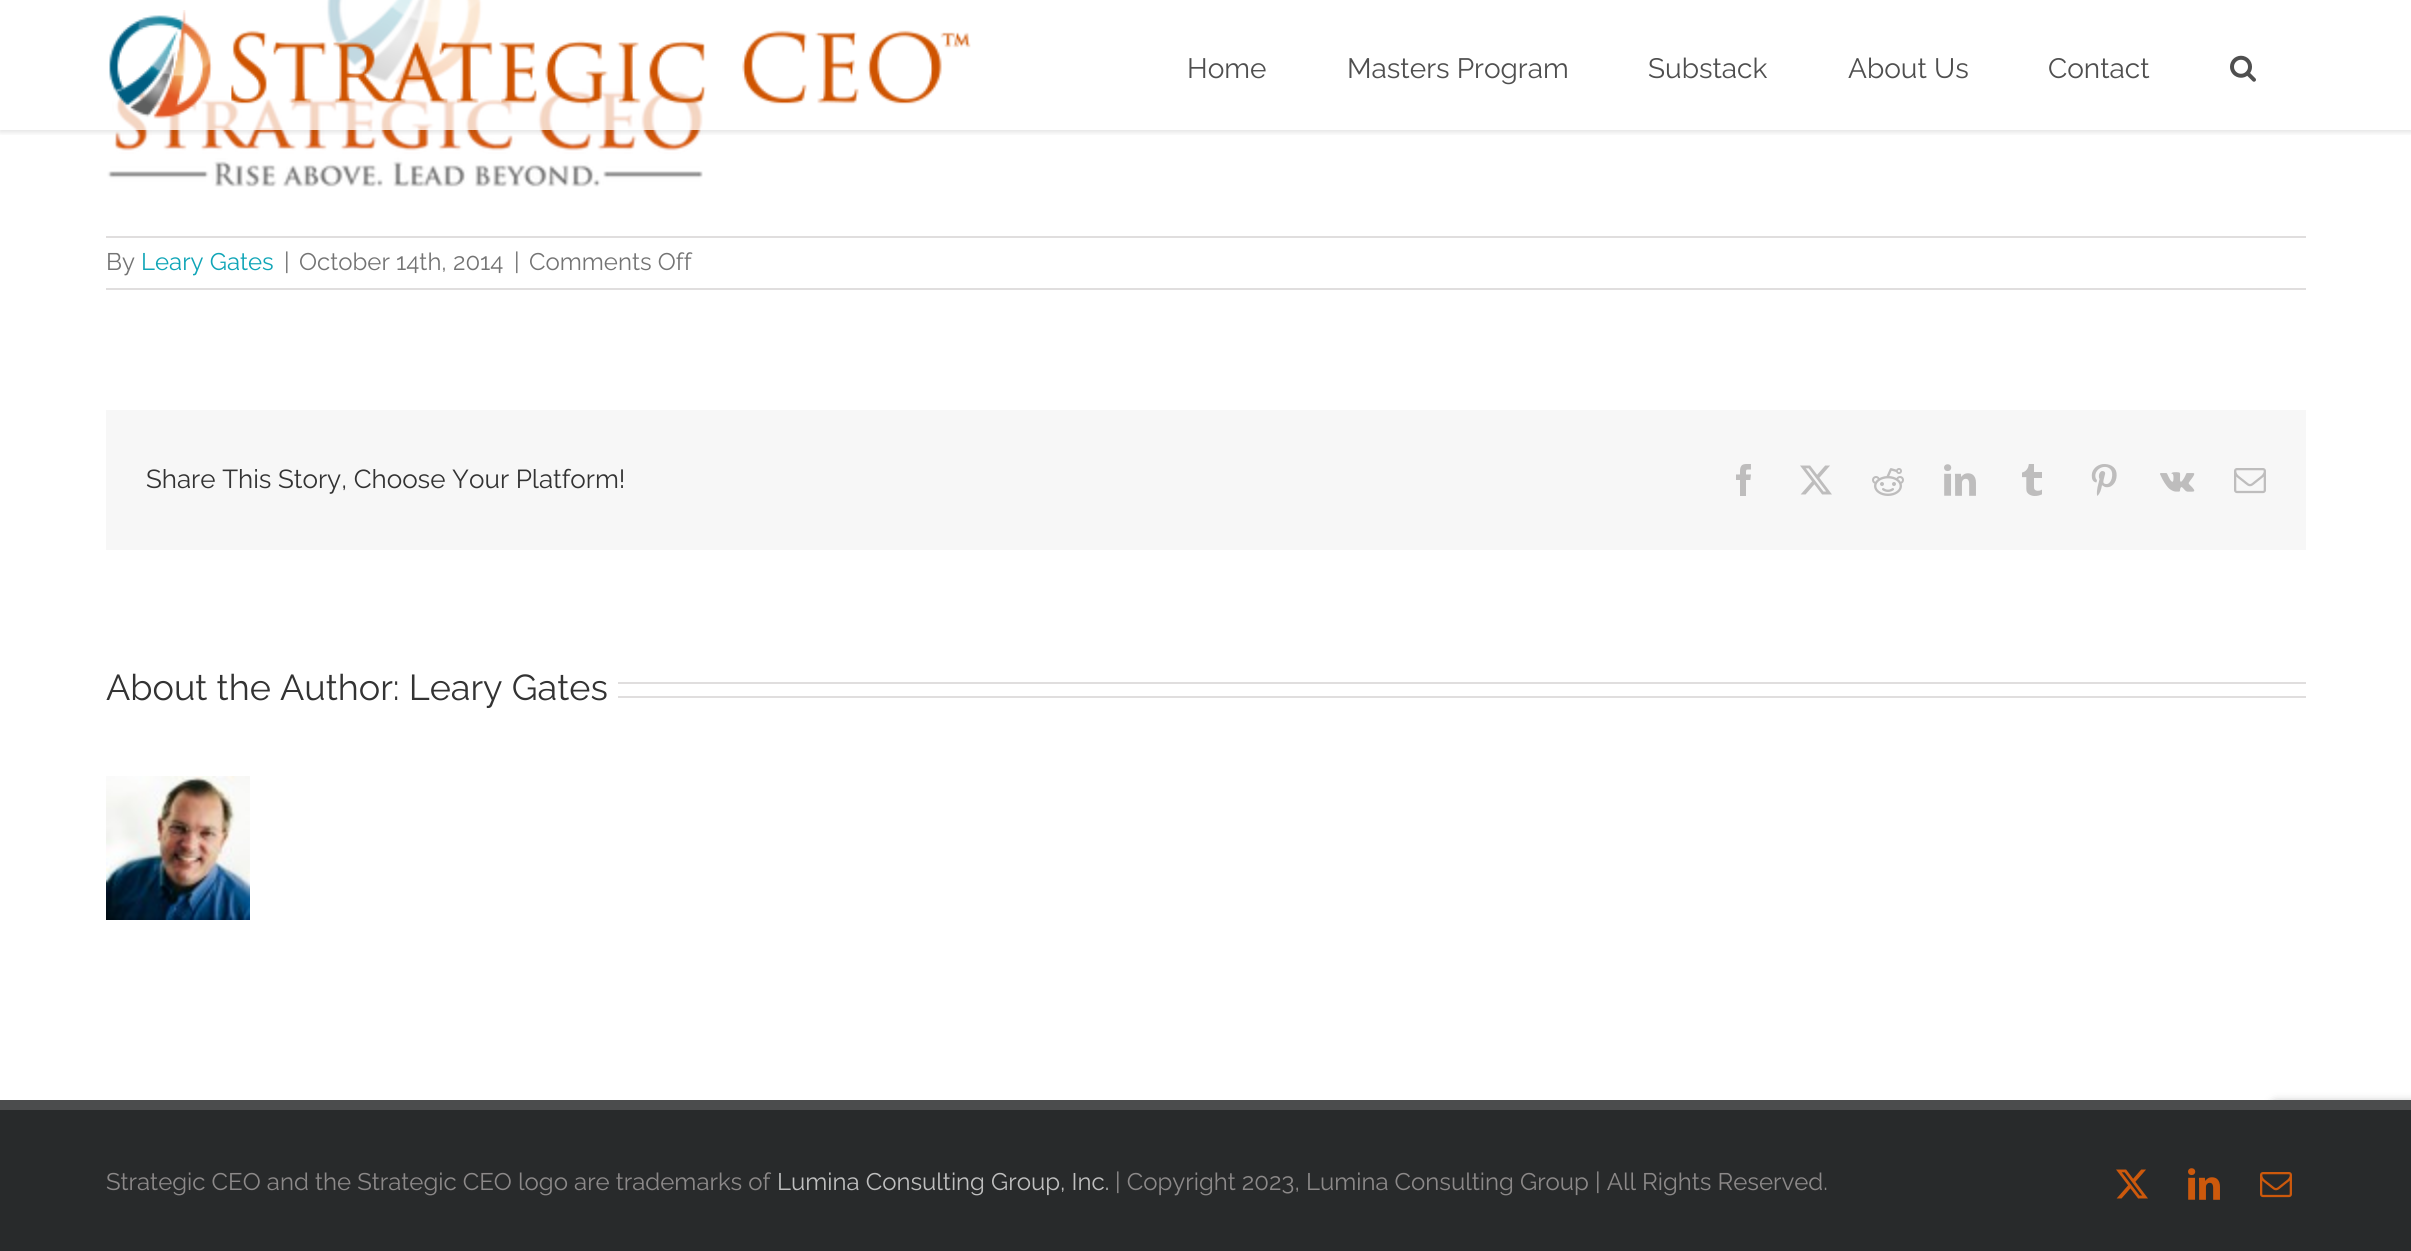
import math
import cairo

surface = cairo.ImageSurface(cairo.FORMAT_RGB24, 2411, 1251)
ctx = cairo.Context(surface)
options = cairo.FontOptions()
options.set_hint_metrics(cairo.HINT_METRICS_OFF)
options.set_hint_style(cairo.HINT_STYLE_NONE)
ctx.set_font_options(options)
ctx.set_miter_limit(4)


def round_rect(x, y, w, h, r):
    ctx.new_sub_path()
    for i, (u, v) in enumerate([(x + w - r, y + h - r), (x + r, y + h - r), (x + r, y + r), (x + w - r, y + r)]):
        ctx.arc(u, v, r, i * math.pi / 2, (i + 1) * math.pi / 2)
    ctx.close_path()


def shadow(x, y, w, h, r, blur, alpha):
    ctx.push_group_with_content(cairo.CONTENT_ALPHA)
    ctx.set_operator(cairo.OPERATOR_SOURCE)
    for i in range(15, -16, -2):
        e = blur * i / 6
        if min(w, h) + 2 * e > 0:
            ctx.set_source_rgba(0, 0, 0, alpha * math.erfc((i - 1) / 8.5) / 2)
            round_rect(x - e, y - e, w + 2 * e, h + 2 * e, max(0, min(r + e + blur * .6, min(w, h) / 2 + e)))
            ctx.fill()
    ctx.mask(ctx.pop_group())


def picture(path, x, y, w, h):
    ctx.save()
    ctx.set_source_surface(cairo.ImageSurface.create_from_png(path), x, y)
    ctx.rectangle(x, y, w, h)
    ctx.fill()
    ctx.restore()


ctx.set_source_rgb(1, 1, 1)
ctx.paint()
picture("img3.png", 107, 0, 596, 187)
ctx.save()
ctx.rectangle(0, 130, 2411, 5)
ctx.clip()
ctx.set_source_rgb(0, 0, 0)
shadow(0, 2, 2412, 130, 0, 3, 0.12)
ctx.restore()
ctx.set_source_rgba(1, 1, 1, 0.75)
ctx.rectangle(115, 0, 588, 130)
ctx.fill()
picture("img1.png", 109, 10, 862, 109)
ctx.select_font_face("Raleway")
ctx.set_font_size(28)
ctx.set_source_rgb(0.31, 0.31, 0.31)
ctx.move_to(1187, 78)
ctx.show_text("Home")
ctx.move_to(1347, 78)
ctx.show_text("Masters Program")
ctx.move_to(1648, 78)
ctx.show_text("Substack")
ctx.move_to(1848, 78)
ctx.show_text("About Us")
ctx.move_to(2048, 78)
ctx.show_text("Contact")
picture("img2.png", 2230, 55, 26, 27)
ctx.set_source_rgb(0.878, 0.871, 0.871)
ctx.rectangle(106, 236, 2200, 2)
ctx.fill()
ctx.rectangle(106, 288, 2200, 2)
ctx.fill()
ctx.set_font_size(24)
ctx.set_source_rgb(0.455, 0.455, 0.455)
ctx.move_to(106, 270)
ctx.show_text("By")
ctx.set_source_rgb(0.063, 0.647, 0.718)
ctx.move_to(141, 270)
ctx.show_text("Leary Gates")
ctx.set_source_rgb(0.455, 0.455, 0.455)
ctx.move_to(284, 270)
ctx.show_text("|")
ctx.move_to(299, 270)
ctx.show_text("October 14th, 2014")
ctx.move_to(514, 270)
ctx.show_text("|")
ctx.move_to(529, 270)
ctx.show_text("Comments Off")
ctx.set_source_rgb(0.965, 0.965, 0.965)
ctx.rectangle(106, 410, 2200, 140)
ctx.fill()
ctx.set_font_size(26)
ctx.set_source_rgb(0.2, 0.2, 0.2)
ctx.move_to(146, 488)
ctx.show_text("Share This Story, Choose Your Platform!")
picture("img4.png", 1736, 464, 15, 32)
picture("img5.png", 1800, 465, 32, 30)
picture("img6.png", 1872, 468, 32, 28)
picture("img7.png", 1944, 464, 32, 32)
picture("img8.png", 2022, 464, 20, 32)
picture("img9.png", 2091, 464, 26, 32)
picture("img10.png", 2160, 472, 35, 20)
picture("img11.png", 2234, 468, 32, 26)
ctx.set_font_size(36)
ctx.move_to(106, 700)
ctx.show_text("About the Author: Leary Gates")
ctx.set_source_rgb(0.878, 0.871, 0.871)
ctx.rectangle(618, 682, 1688, 2)
ctx.fill()
ctx.rectangle(618, 696, 1688, 2)
ctx.fill()
picture("img12.png", 106, 776, 144, 144)
ctx.set_source_rgb(0.502, 0.502, 0.502)
shadow(2272, 1104, 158, 120, 4, 5, 1)
ctx.set_source_rgb(0.157, 0.165, 0.169)
ctx.rectangle(0, 1110, 2411, 141)
ctx.fill()
ctx.set_source_rgb(0.294, 0.298, 0.302)
ctx.rectangle(0, 1100, 2411, 10)
ctx.fill()
ctx.set_font_size(24)
ctx.set_source_rgb(0.549, 0.537, 0.537)
ctx.move_to(106, 1190)
ctx.show_text("Strategic CEO and the Strategic CEO logo are trademarks of")
ctx.set_source_rgb(0.749, 0.749, 0.749)
ctx.move_to(777, 1190)
ctx.show_text("Lumina Consulting Group, Inc.")
ctx.set_source_rgb(0.549, 0.537, 0.537)
ctx.move_to(1115, 1190)
ctx.show_text("| Copyright 2023, Lumina Consulting Group | All Rights Reserved.")
picture("img13.png", 2116, 1169, 32, 30)
picture("img14.png", 2188, 1168, 32, 32)
picture("img15.png", 2260, 1172, 32, 26)
surface.write_to_png("page.png")
